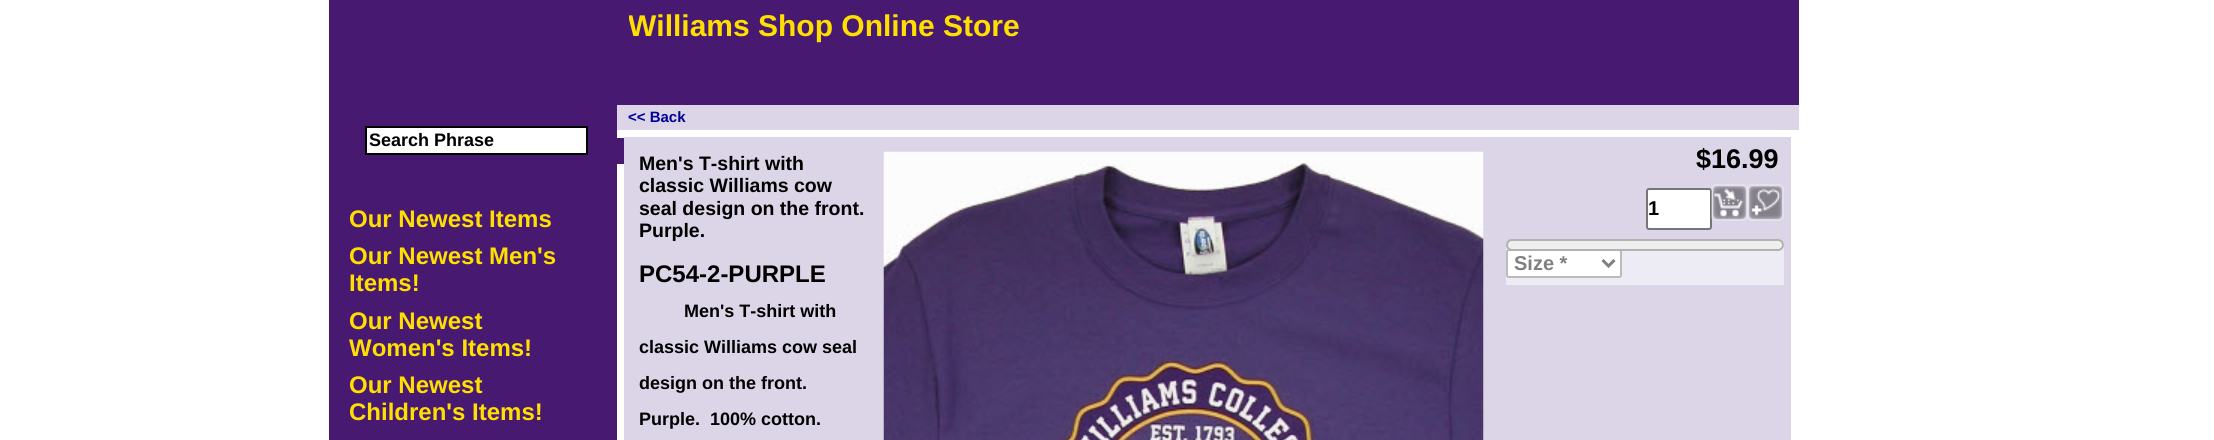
import math
import cairo

surface = cairo.ImageSurface(cairo.FORMAT_RGB24, 2214, 440)
ctx = cairo.Context(surface)
options = cairo.FontOptions()
options.set_hint_metrics(cairo.HINT_METRICS_OFF)
options.set_hint_style(cairo.HINT_STYLE_NONE)
ctx.set_font_options(options)
ctx.set_miter_limit(4)


def round_rect(x, y, w, h, r):
    ctx.new_sub_path()
    for i, (u, v) in enumerate([(x + w - r, y + h - r), (x + r, y + h - r), (x + r, y + r), (x + w - r, y + r)]):
        ctx.arc(u, v, r, i * math.pi / 2, (i + 1) * math.pi / 2)
    ctx.close_path()


def picture(path, x, y, w, h):
    ctx.save()
    ctx.set_source_surface(cairo.ImageSurface.create_from_png(path), x, y)
    ctx.rectangle(x, y, w, h)
    ctx.fill()
    ctx.restore()


ctx.set_source_rgb(1, 1, 1)
ctx.paint()
ctx.set_source_rgb(0.282, 0.098, 0.439)
ctx.rectangle(329, 0, 1470, 105)
ctx.fill()
ctx.save()
ctx.rectangle(629, 8, 1162, 45)
ctx.clip()
ctx.select_font_face("Liberation Sans", cairo.FONT_SLANT_NORMAL, cairo.FONT_WEIGHT_BOLD)
ctx.set_font_size(30)
ctx.set_source_rgb(1, 0.875, 0)
ctx.move_to(628, 36)
ctx.show_text("Williams Shop Online Store")
ctx.restore()
ctx.rectangle(329, 105, 288, 335)
ctx.fill()
ctx.set_source_rgb(1, 1, 1)
ctx.rectangle(366, 127, 221, 27)
ctx.fill_preserve()
ctx.set_source_rgb(0, 0, 0)
ctx.stroke()
ctx.select_font_face("Liberation Sans", cairo.FONT_SLANT_NORMAL, cairo.FONT_WEIGHT_BOLD)
ctx.set_font_size(18)
ctx.move_to(369, 146)
ctx.show_text("Search Phrase")
ctx.set_source_rgb(0.282, 0.098, 0.439)
ctx.rectangle(617, 138, 7, 26)
ctx.fill()
ctx.set_font_size(24)
ctx.set_source_rgb(1, 0.875, 0)
ctx.move_to(349, 227)
ctx.show_text("Our Newest Items")
ctx.move_to(349, 264)
ctx.show_text("Our Newest Men's")
ctx.move_to(349, 291)
ctx.show_text("Items!")
ctx.move_to(349, 329)
ctx.show_text("Our Newest")
ctx.move_to(349, 356)
ctx.show_text("Women's Items!")
ctx.move_to(349, 393)
ctx.show_text("Our Newest")
ctx.move_to(349, 420)
ctx.show_text("Children's Items!")
ctx.set_source_rgb(0.859, 0.835, 0.906)
ctx.rectangle(617, 105, 1182, 25)
ctx.fill()
ctx.set_font_size(15)
ctx.set_source_rgb(0.004, 0.004, 0.592)
ctx.move_to(628, 122)
ctx.show_text("<< Back")
ctx.set_source_rgb(0.859, 0.835, 0.906)
ctx.rectangle(624, 137, 1167, 303)
ctx.fill()
ctx.set_font_size(19.5)
ctx.set_source_rgb(0, 0, 0)
ctx.move_to(639, 170)
ctx.show_text("Men's T-shirt with")
ctx.move_to(639, 192)
ctx.show_text("classic Williams cow")
ctx.move_to(639, 215)
ctx.show_text("seal design on the front.")
ctx.move_to(639, 237)
ctx.show_text("Purple.")
picture("img1.png", 883, 151, 601, 289)
ctx.set_font_size(24)
ctx.move_to(639, 282)
ctx.show_text("PC54-2-PURPLE")
ctx.set_font_size(18)
ctx.move_to(684, 317)
ctx.show_text("Men's T-shirt with")
ctx.move_to(639, 353)
ctx.show_text("classic Williams cow seal")
ctx.move_to(639, 389)
ctx.show_text("design on the front.")
ctx.move_to(639, 425)
ctx.show_text("Purple.  100% cotton.")
ctx.set_source_rgb(0.929, 0.918, 0.953)
ctx.rectangle(1506, 242, 278, 43)
ctx.fill()
ctx.set_font_size(27)
ctx.set_source_rgb(0, 0, 0)
ctx.move_to(1696, 168)
ctx.show_text("$16.99")
ctx.set_source_rgb(1, 1, 1)
round_rect(1647, 189, 64, 40, 2)
ctx.fill_preserve()
ctx.set_source_rgb(0.463, 0.463, 0.463)
ctx.stroke()
ctx.set_font_size(20)
ctx.set_source_rgb(0, 0, 0)
ctx.move_to(1648, 215)
ctx.show_text("1")
picture("img3.png", 1747, 184, 37, 37)
picture("img2.png", 1711, 184, 37, 37)
ctx.set_source_rgb(1, 1, 1)
round_rect(1507, 250, 114, 27, 2)
ctx.fill_preserve()
ctx.set_source_rgb(0.733, 0.733, 0.733)
ctx.stroke()
ctx.set_source_rgb(0.937, 0.937, 0.937)
round_rect(1507, 240, 276, 10, 5)
ctx.fill_preserve()
ctx.set_source_rgb(0.698, 0.698, 0.698)
ctx.stroke()
ctx.new_path()
ctx.move_to(1602.5, 260)
ctx.line_to(1608.5, 266)
ctx.line_to(1614.5, 260)
ctx.set_source_rgb(0.502, 0.502, 0.502)
ctx.set_line_width(3)
ctx.stroke()
ctx.move_to(1514, 270)
ctx.show_text("Size *")
surface.write_to_png("page.png")
